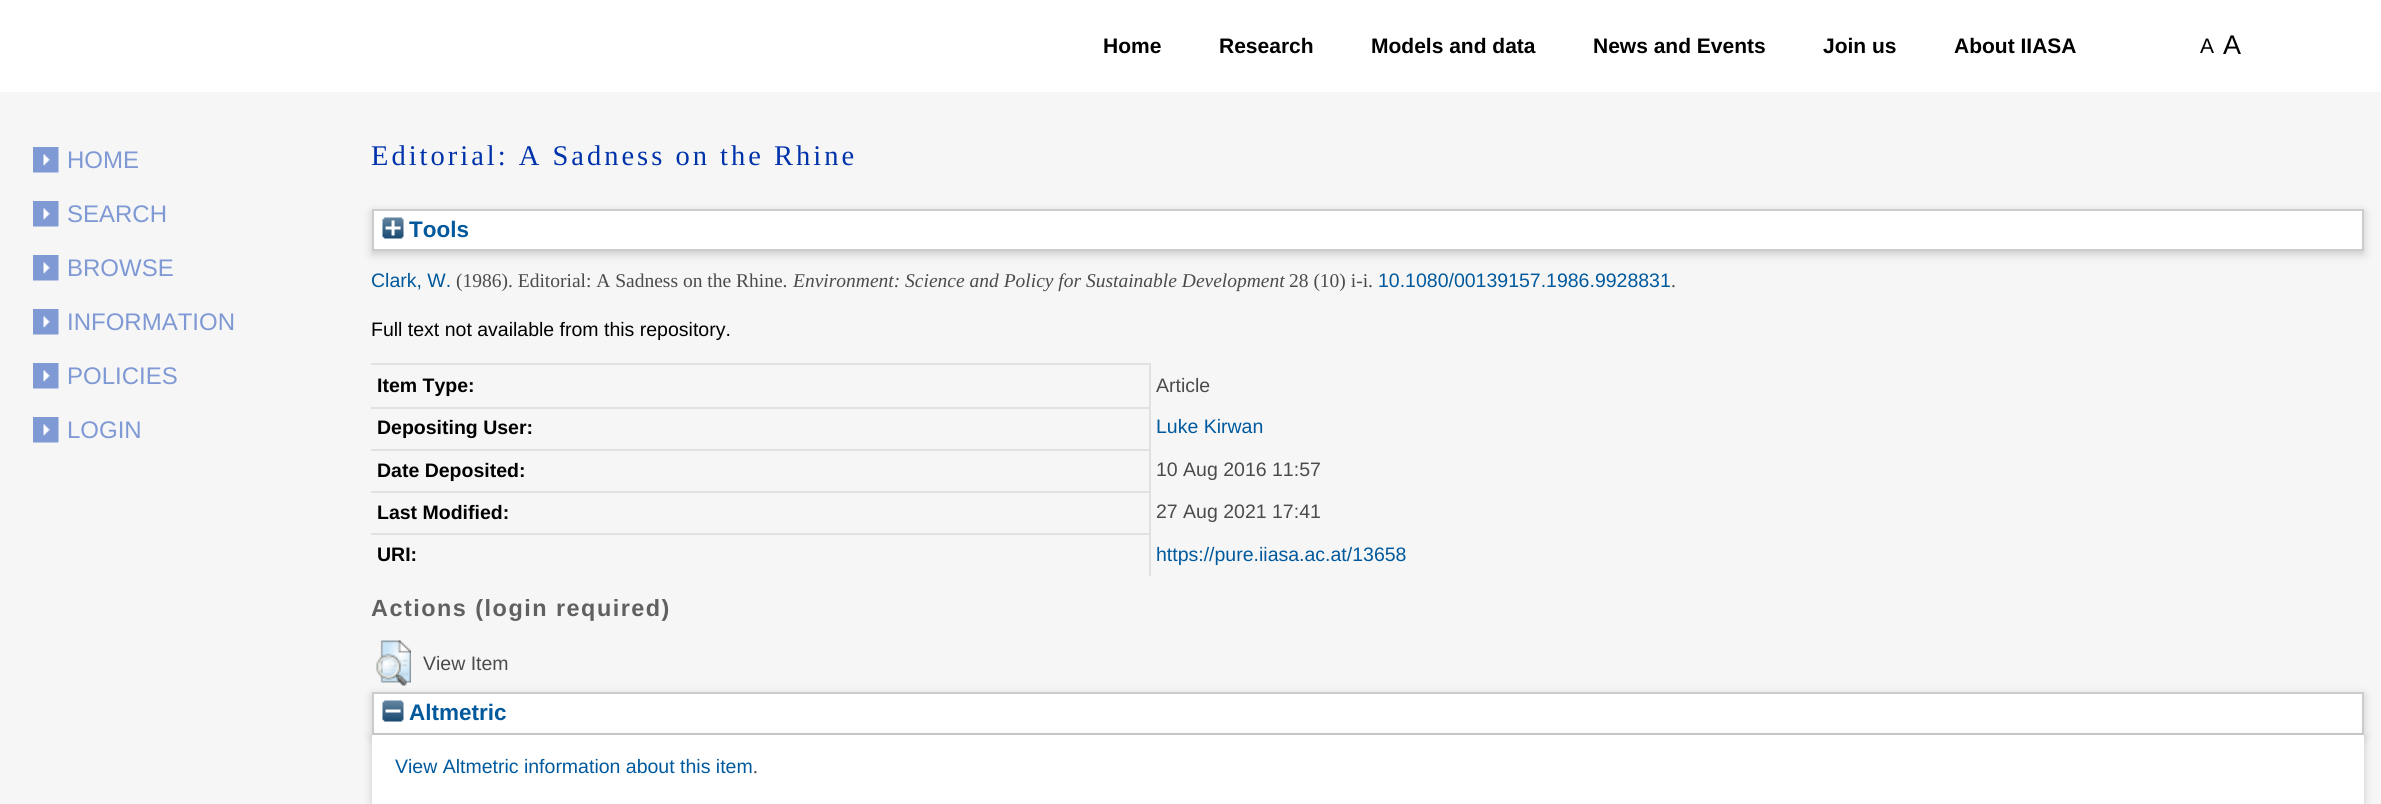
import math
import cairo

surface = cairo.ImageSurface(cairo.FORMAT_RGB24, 2381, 804)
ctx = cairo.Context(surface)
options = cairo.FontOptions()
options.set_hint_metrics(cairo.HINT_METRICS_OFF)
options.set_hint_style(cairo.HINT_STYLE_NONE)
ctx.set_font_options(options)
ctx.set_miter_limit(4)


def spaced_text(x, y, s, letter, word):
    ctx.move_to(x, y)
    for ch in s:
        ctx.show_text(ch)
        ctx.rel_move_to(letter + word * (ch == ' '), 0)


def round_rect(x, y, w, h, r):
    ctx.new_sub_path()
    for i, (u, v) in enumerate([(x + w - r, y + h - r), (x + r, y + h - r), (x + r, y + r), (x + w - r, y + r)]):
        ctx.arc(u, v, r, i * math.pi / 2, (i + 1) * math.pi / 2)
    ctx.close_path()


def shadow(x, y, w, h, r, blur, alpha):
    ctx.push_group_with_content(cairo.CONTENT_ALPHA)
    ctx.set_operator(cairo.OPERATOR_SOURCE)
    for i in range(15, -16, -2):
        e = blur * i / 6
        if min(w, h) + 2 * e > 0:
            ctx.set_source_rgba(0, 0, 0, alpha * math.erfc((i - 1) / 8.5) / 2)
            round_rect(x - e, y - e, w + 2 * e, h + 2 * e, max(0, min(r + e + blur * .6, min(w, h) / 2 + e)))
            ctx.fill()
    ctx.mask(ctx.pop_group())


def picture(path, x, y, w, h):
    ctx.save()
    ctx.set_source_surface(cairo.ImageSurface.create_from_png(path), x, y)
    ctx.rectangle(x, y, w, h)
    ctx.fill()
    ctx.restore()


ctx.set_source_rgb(0.961, 0.961, 0.961)
ctx.paint()
ctx.set_source_rgb(1, 1, 1)
ctx.rectangle(0, 0, 2381, 92)
ctx.fill()
ctx.select_font_face("Liberation Sans", cairo.FONT_SLANT_NORMAL, cairo.FONT_WEIGHT_BOLD)
ctx.set_font_size(21)
ctx.set_source_rgb(0, 0, 0)
ctx.move_to(1103, 53)
ctx.show_text("Home")
ctx.move_to(1219, 53)
ctx.show_text("Research")
ctx.move_to(1371, 53)
ctx.show_text("Models and data")
ctx.move_to(1593, 53)
ctx.show_text("News and Events")
ctx.move_to(1823, 53)
ctx.show_text("Join us")
ctx.move_to(1954, 53)
ctx.show_text("About IIASA")
ctx.select_font_face("Liberation Sans")
ctx.move_to(2200, 53)
ctx.show_text("A")
ctx.set_font_size(27)
ctx.move_to(2223, 54)
ctx.show_text("A")
picture("img1.png", 33, 147, 26, 26)
ctx.set_font_size(24)
ctx.set_source_rgb(0.498, 0.6, 0.831)
ctx.move_to(67, 168)
ctx.show_text("HOME")
picture("img1.png", 33, 201, 26, 26)
ctx.move_to(67, 222)
ctx.show_text("SEARCH")
picture("img1.png", 33, 255, 26, 26)
ctx.move_to(67, 276)
ctx.show_text("BROWSE")
picture("img1.png", 33, 309, 26, 26)
ctx.move_to(67, 330)
ctx.show_text("INFORMATION")
picture("img1.png", 33, 363, 26, 26)
ctx.move_to(67, 384)
ctx.show_text("POLICIES")
picture("img1.png", 33, 417, 26, 26)
ctx.move_to(67, 438)
ctx.show_text("LOGIN")
ctx.select_font_face("Liberation Serif")
ctx.set_font_size(28.5)
ctx.set_source_rgb(0, 0.2, 0.667)
spaced_text(371, 165, "Editorial: A Sadness on the Rhine", 3, 0)
ctx.set_source_rgb(0.392, 0.392, 0.392)
shadow(372, 212, 1992, 42, 0, 4.5, 0.3)
ctx.set_source_rgb(1, 1, 1)
ctx.rectangle(373, 210, 1990, 40)
ctx.fill_preserve()
ctx.set_source_rgb(0.8, 0.8, 0.8)
ctx.stroke()
picture("img2.png", 382, 217, 22, 22)
ctx.select_font_face("Liberation Sans", cairo.FONT_SLANT_NORMAL, cairo.FONT_WEIGHT_BOLD)
ctx.set_font_size(22.5)
ctx.set_source_rgb(0, 0.349, 0.616)
ctx.move_to(409, 237)
ctx.show_text("Tools")
ctx.select_font_face("Liberation Sans")
ctx.set_font_size(19.5)
ctx.move_to(371, 287)
ctx.show_text("Clark, W.")
ctx.select_font_face("Liberation Serif")
ctx.set_source_rgb(0.294, 0.29, 0.302)
ctx.move_to(456, 287)
ctx.show_text("(1986). Editorial: A Sadness on the Rhine.")
ctx.select_font_face("Liberation Serif", cairo.FONT_SLANT_ITALIC)
ctx.move_to(793, 287)
ctx.show_text("Environment: Science and Policy for Sustainable Development")
ctx.select_font_face("Liberation Serif")
ctx.move_to(1289, 287)
ctx.show_text("28 (10) i-i.")
ctx.select_font_face("Liberation Sans")
ctx.set_source_rgb(0, 0.349, 0.616)
ctx.move_to(1378, 287)
ctx.show_text("10.1080/00139157.1986.9928831")
ctx.select_font_face("Liberation Serif")
ctx.set_source_rgb(0.294, 0.29, 0.302)
ctx.move_to(1671, 287)
ctx.show_text(".")
ctx.select_font_face("Liberation Sans")
ctx.set_source_rgb(0, 0, 0)
ctx.move_to(371, 336)
ctx.show_text("Full text not available from this repository.")
ctx.set_source_rgb(0.878, 0.882, 0.882)
ctx.rectangle(371, 363, 780, 2)
ctx.fill()
ctx.rectangle(371, 407, 780, 2)
ctx.fill()
ctx.rectangle(371, 449, 780, 2)
ctx.fill()
ctx.rectangle(371, 491, 780, 2)
ctx.fill()
ctx.rectangle(371, 533, 780, 2)
ctx.fill()
ctx.rectangle(1149, 533, 2, 43)
ctx.fill()
ctx.rectangle(1149, 491, 2, 43)
ctx.fill()
ctx.rectangle(1149, 449, 2, 43)
ctx.fill()
ctx.rectangle(1149, 407, 2, 43)
ctx.fill()
ctx.rectangle(1149, 363, 2, 45)
ctx.fill()
ctx.select_font_face("Liberation Sans", cairo.FONT_SLANT_NORMAL, cairo.FONT_WEIGHT_BOLD)
ctx.set_source_rgb(0, 0, 0)
ctx.move_to(377, 392)
ctx.show_text("Item Type:")
ctx.select_font_face("Liberation Sans")
ctx.set_source_rgb(0.294, 0.29, 0.302)
ctx.move_to(1156, 392)
ctx.show_text("Article")
ctx.select_font_face("Liberation Sans", cairo.FONT_SLANT_NORMAL, cairo.FONT_WEIGHT_BOLD)
ctx.set_source_rgb(0, 0, 0)
ctx.move_to(377, 434)
ctx.show_text("Depositing User:")
ctx.select_font_face("Liberation Sans")
ctx.set_source_rgb(0, 0.349, 0.616)
ctx.move_to(1156, 433)
ctx.show_text("Luke Kirwan")
ctx.select_font_face("Liberation Sans", cairo.FONT_SLANT_NORMAL, cairo.FONT_WEIGHT_BOLD)
ctx.set_source_rgb(0, 0, 0)
ctx.move_to(377, 477)
ctx.show_text("Date Deposited:")
ctx.select_font_face("Liberation Sans")
ctx.set_source_rgb(0.294, 0.29, 0.302)
ctx.move_to(1156, 476)
ctx.show_text("10 Aug 2016 11:57")
ctx.select_font_face("Liberation Sans", cairo.FONT_SLANT_NORMAL, cairo.FONT_WEIGHT_BOLD)
ctx.set_source_rgb(0, 0, 0)
ctx.move_to(377, 519)
ctx.show_text("Last Modified:")
ctx.select_font_face("Liberation Sans")
ctx.set_source_rgb(0.294, 0.29, 0.302)
ctx.move_to(1156, 518)
ctx.show_text("27 Aug 2021 17:41")
ctx.select_font_face("Liberation Sans", cairo.FONT_SLANT_NORMAL, cairo.FONT_WEIGHT_BOLD)
ctx.set_source_rgb(0, 0, 0)
ctx.move_to(377, 561)
ctx.show_text("URI:")
ctx.select_font_face("Liberation Sans")
ctx.set_source_rgb(0, 0.349, 0.616)
ctx.move_to(1156, 561)
ctx.show_text("https://pure.iiasa.ac.at/13658")
ctx.select_font_face("Liberation Sans", cairo.FONT_SLANT_NORMAL, cairo.FONT_WEIGHT_BOLD)
ctx.set_font_size(23.4)
ctx.set_source_rgb(0.376, 0.376, 0.376)
spaced_text(371, 616, "Actions (login required)", 1.5, 0)
ctx.set_source_rgb(0.392, 0.392, 0.392)
shadow(372, 695, 1992, 43, 0, 4.5, 0.3)
picture("img3.png", 376, 640, 35, 46)
ctx.select_font_face("Liberation Sans")
ctx.set_font_size(19.5)
ctx.set_source_rgb(0.294, 0.29, 0.302)
ctx.move_to(423, 670)
ctx.show_text("View Item")
ctx.set_source_rgb(1, 1, 1)
ctx.rectangle(373, 693, 1990, 41)
ctx.fill_preserve()
ctx.set_source_rgb(0.8, 0.8, 0.8)
ctx.stroke()
picture("img4.png", 382, 700, 22, 22)
ctx.select_font_face("Liberation Sans", cairo.FONT_SLANT_NORMAL, cairo.FONT_WEIGHT_BOLD)
ctx.set_font_size(22.5)
ctx.set_source_rgb(0, 0.349, 0.616)
ctx.move_to(409, 720)
ctx.show_text("Altmetric")
ctx.set_source_rgb(0.392, 0.392, 0.392)
shadow(372, 738, 1992, 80, 0, 4.5, 0.3)
ctx.set_source_rgb(1, 1, 1)
ctx.rectangle(372, 735, 1992, 69)
ctx.fill()
ctx.select_font_face("Liberation Sans")
ctx.set_font_size(19.5)
ctx.set_source_rgb(0, 0.349, 0.616)
ctx.move_to(395, 773)
ctx.show_text("View Altmetric information about this item")
ctx.select_font_face("Liberation Serif")
ctx.set_source_rgb(0.294, 0.29, 0.302)
ctx.move_to(753, 773)
ctx.show_text(".")
surface.write_to_png("page.png")
